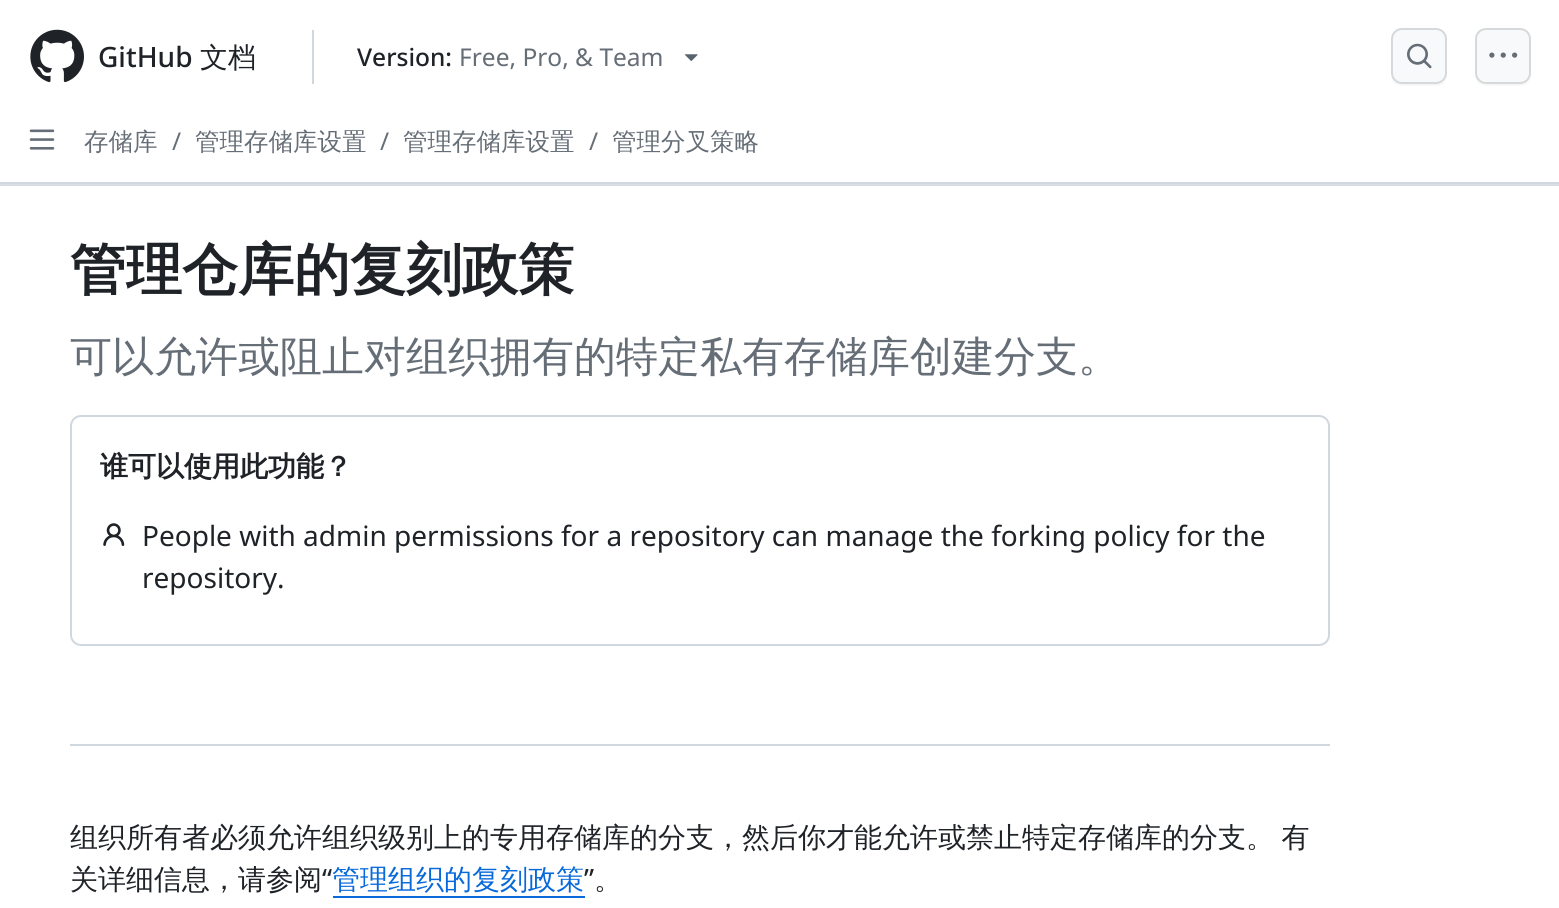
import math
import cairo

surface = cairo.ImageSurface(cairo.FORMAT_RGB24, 1559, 908)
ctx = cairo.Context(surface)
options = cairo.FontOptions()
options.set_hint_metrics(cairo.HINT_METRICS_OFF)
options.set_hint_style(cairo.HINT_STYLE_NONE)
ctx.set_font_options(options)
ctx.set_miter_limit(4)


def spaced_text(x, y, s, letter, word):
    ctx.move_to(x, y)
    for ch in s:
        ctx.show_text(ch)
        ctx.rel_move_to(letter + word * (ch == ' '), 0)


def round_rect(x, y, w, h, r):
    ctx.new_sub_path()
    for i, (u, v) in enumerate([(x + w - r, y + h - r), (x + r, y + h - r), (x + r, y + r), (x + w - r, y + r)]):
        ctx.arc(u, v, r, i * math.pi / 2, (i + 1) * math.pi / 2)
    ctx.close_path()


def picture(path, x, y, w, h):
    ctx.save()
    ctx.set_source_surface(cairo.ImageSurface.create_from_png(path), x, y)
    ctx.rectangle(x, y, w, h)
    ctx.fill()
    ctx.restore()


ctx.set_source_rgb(1, 1, 1)
ctx.paint()
ctx.set_source_rgb(0.847, 0.871, 0.894)
ctx.rectangle(0, 184, 1559, 2)
ctx.fill()
ctx.set_source_rgb(0.816, 0.843, 0.871)
ctx.rectangle(0, 182, 1559, 2)
ctx.fill()
picture("img1.png", 30, 29, 54, 54)
ctx.select_font_face("Noto Sans Medium")
ctx.set_font_size(28)
ctx.set_source_rgb(0.122, 0.137, 0.157)
ctx.move_to(98, 67)
ctx.show_text("GitHub")
ctx.select_font_face("WenQuanYi Zen Hei Medium")
ctx.move_to(200, 67)
ctx.show_text("文档")
ctx.set_source_rgb(0.816, 0.843, 0.871)
ctx.rectangle(312, 30, 2, 54)
ctx.fill()
ctx.select_font_face("Noto Sans Medium")
ctx.set_font_size(24.5)
ctx.set_source_rgb(0.122, 0.137, 0.157)
ctx.move_to(357, 66)
ctx.show_text("Version:")
ctx.select_font_face("Noto Sans")
ctx.set_source_rgb(0.396, 0.427, 0.463)
ctx.move_to(459, 66)
ctx.show_text("Free, Pro, & Team")
picture("img2.png", 684, 54, 14, 7)
ctx.set_source_rgb(0.965, 0.965, 0.965)
ctx.new_path()
ctx.move_to(1391, 39)
ctx.line_to(1391, 64)
ctx.curve_to(1391, 85, 1392, 86, 1413, 86)
ctx.line_to(1430, 86)
ctx.curve_to(1438, 86, 1446, 86, 1447, 76)
ctx.curve_to(1446, 81, 1442, 84, 1437, 84)
ctx.line_to(1402, 84)
ctx.curve_to(1396, 84, 1391, 79, 1391, 74)
ctx.close_path()
ctx.fill()
ctx.set_source_rgb(0.965, 0.973, 0.98)
round_rect(1391, 28, 56, 56, 11)
ctx.fill()
round_rect(1392, 29, 54, 54, 10)
ctx.set_source_rgba(0.122, 0.137, 0.157, 0.15)
ctx.stroke()
picture("img3.png", 1407, 43, 25, 26)
ctx.set_source_rgb(0.965, 0.965, 0.965)
ctx.new_path()
ctx.move_to(1475, 39)
ctx.line_to(1475, 64)
ctx.curve_to(1475, 85, 1476, 86, 1497, 86)
ctx.line_to(1514, 86)
ctx.curve_to(1522, 86, 1530, 86, 1531, 76)
ctx.curve_to(1530, 81, 1526, 84, 1521, 84)
ctx.line_to(1486, 84)
ctx.curve_to(1480, 84, 1475, 79, 1475, 74)
ctx.close_path()
ctx.fill()
ctx.set_source_rgb(0.965, 0.973, 0.98)
round_rect(1475, 28, 56, 56, 11)
ctx.fill()
round_rect(1476, 29, 54, 54, 10)
ctx.set_source_rgba(0.122, 0.137, 0.157, 0.15)
ctx.stroke()
picture("img4.png", 1489, 52, 29, 6)
picture("img5.png", 29, 129, 26, 21)
ctx.select_font_face("WenQuanYi Zen Hei Medium")
ctx.set_source_rgb(0.396, 0.427, 0.463)
ctx.move_to(84, 150)
ctx.show_text("存储库")
ctx.select_font_face("Noto Sans")
ctx.move_to(172, 150)
ctx.show_text("/")
ctx.select_font_face("WenQuanYi Zen Hei Medium")
ctx.move_to(195, 150)
ctx.show_text("管理存储库设置")
ctx.select_font_face("Noto Sans")
ctx.move_to(380, 150)
ctx.show_text("/")
ctx.select_font_face("WenQuanYi Zen Hei Medium")
ctx.move_to(403, 150)
ctx.show_text("管理存储库设置")
ctx.select_font_face("Noto Sans")
ctx.move_to(589, 150)
ctx.show_text("/")
ctx.select_font_face("WenQuanYi Zen Hei Medium")
ctx.move_to(612, 150)
ctx.show_text("管理分叉策略")
ctx.select_font_face("WenQuanYi Zen Hei", cairo.FONT_SLANT_NORMAL, cairo.FONT_WEIGHT_BOLD)
ctx.set_font_size(56)
ctx.set_source_rgb(0.122, 0.137, 0.157)
ctx.move_to(70, 289)
ctx.show_text("管理仓库的复刻政策")
ctx.select_font_face("WenQuanYi Zen Hei Medium")
ctx.set_font_size(42)
ctx.set_source_rgb(0.396, 0.427, 0.463)
ctx.move_to(70, 371)
ctx.show_text("可以允许或阻止对组织拥有的特定私有存储库创建分支。")
round_rect(71, 416, 1258, 229, 10)
ctx.set_source_rgb(0.816, 0.843, 0.871)
ctx.stroke()
ctx.select_font_face("WenQuanYi Zen Hei", cairo.FONT_SLANT_NORMAL, cairo.FONT_WEIGHT_BOLD)
ctx.set_font_size(28)
ctx.set_source_rgb(0.122, 0.137, 0.157)
ctx.move_to(100, 476)
ctx.show_text("谁可以使用此功能？")
picture("img6.png", 103, 523, 22, 23)
ctx.select_font_face("Noto Sans")
ctx.move_to(142, 546)
ctx.show_text("People with admin permissions for a repository can manage the forking policy for the")
ctx.move_to(142, 588)
ctx.show_text("repository.")
ctx.set_source_rgb(0.816, 0.843, 0.871)
ctx.rectangle(70, 744, 1260, 2)
ctx.fill()
ctx.select_font_face("WenQuanYi Zen Hei Medium")
ctx.set_source_rgb(0.122, 0.137, 0.157)
spaced_text(70, 847, "组织所有者必须允许组织级别上的专用存储库的分支，然后你才能允许或禁止特定存储库的分支。 有", 0, -1)
ctx.move_to(70, 889)
ctx.show_text("关详细信息，请参阅")
ctx.select_font_face("Noto Sans")
ctx.move_to(322, 889)
ctx.show_text("“")
ctx.select_font_face("WenQuanYi Zen Hei Medium")
ctx.set_source_rgb(0.035, 0.412, 0.855)
ctx.move_to(332, 889)
ctx.show_text("管理组织的复刻政策")
ctx.rectangle(333, 896, 252, 2)
ctx.fill()
ctx.select_font_face("Noto Sans")
ctx.set_source_rgb(0.122, 0.137, 0.157)
ctx.move_to(584, 889)
ctx.show_text("”")
ctx.select_font_face("WenQuanYi Zen Hei Medium")
ctx.move_to(594, 889)
ctx.show_text("。")
surface.write_to_png("page.png")
